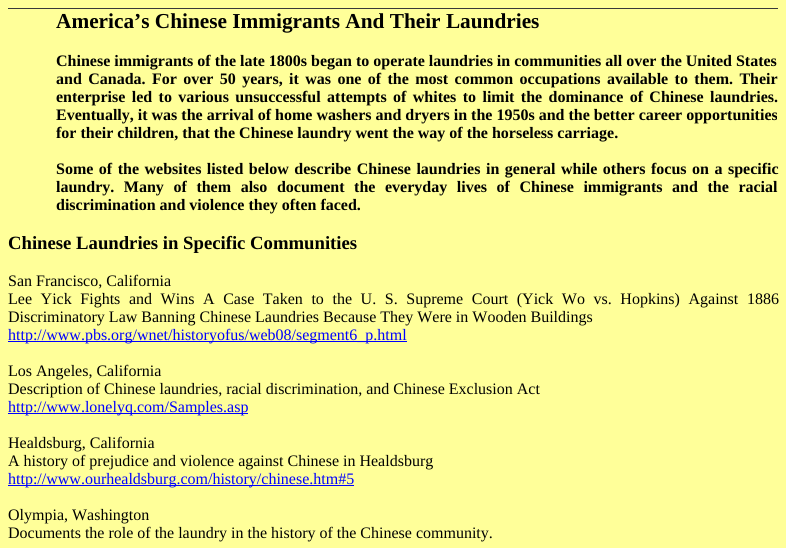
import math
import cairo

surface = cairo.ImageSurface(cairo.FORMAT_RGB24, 786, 548)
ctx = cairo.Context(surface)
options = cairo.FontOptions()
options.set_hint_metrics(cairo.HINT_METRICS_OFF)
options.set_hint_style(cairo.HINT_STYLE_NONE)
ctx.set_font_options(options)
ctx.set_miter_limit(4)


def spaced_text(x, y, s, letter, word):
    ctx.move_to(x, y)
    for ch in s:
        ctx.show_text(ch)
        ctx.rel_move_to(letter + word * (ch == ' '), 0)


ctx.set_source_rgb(1, 1, 0.6)
ctx.paint()
ctx.set_source_rgb(0.224, 0.224, 0.224)
ctx.rectangle(8, 8, 770, 1)
ctx.fill()
ctx.select_font_face("Liberation Serif", cairo.FONT_SLANT_NORMAL, cairo.FONT_WEIGHT_BOLD)
ctx.set_font_size(21.3)
ctx.set_source_rgb(0, 0, 0)
ctx.move_to(56, 28)
ctx.show_text("America’s Chinese Immigrants And Their Laundries")
ctx.set_font_size(16)
ctx.move_to(56, 66)
ctx.show_text("Chinese immigrants of the late 1800s began to operate laundries in communities all over the United States")
spaced_text(56, 84, "and Canada. For over 50 years, it was one of the most common occupations available to them. Their", 0, 2.4)
spaced_text(56, 102, "enterprise led to various unsuccessful attempts of whites to limit the dominance of Chinese laundries.", 0, 2.4)
ctx.move_to(56, 120)
ctx.show_text("Eventually, it was the arrival of home washers and dryers in the 1950s and the better career opportunities")
ctx.move_to(56, 138)
ctx.show_text("for their children, that the Chinese laundry went the way of the horseless carriage.")
spaced_text(56, 174, "Some of the websites listed below describe Chinese laundries in general while others focus on a specific", 0, 1.5)
spaced_text(56, 192, "laundry. Many of them also document the everyday lives of Chinese immigrants and the racial", 0, 5.6)
ctx.move_to(56, 210)
ctx.show_text("discrimination and violence they often faced.")
ctx.set_font_size(18.7)
ctx.move_to(8, 249)
ctx.show_text("Chinese Laundries in Specific Communities")
ctx.select_font_face("Liberation Serif")
ctx.set_font_size(16)
ctx.move_to(8, 286)
ctx.show_text("San Francisco, California")
spaced_text(8, 304, "Lee Yick Fights and Wins A Case Taken to the U. S. Supreme Court (Yick Wo vs. Hopkins) Against 1886", 0, 4.6)
ctx.move_to(8, 322)
ctx.show_text("Discriminatory Law Banning Chinese Laundries Because They Were in Wooden Buildings")
ctx.set_source_rgb(0, 0, 1)
ctx.rectangle(8, 341, 399, 1)
ctx.fill()
ctx.move_to(8, 340)
ctx.show_text("http://www.pbs.org/wnet/historyofus/web08/segment6_p.html")
ctx.set_source_rgb(0, 0, 0)
ctx.move_to(8, 376)
ctx.show_text("Los Angeles, California")
ctx.move_to(8, 394)
ctx.show_text("Description of Chinese laundries, racial discrimination, and Chinese Exclusion Act")
ctx.set_source_rgb(0, 0, 1)
ctx.rectangle(8, 413, 240, 1)
ctx.fill()
ctx.move_to(8, 412)
ctx.show_text("http://www.lonelyq.com/Samples.asp")
ctx.set_source_rgb(0, 0, 0)
ctx.move_to(8, 448)
ctx.show_text("Healdsburg, California")
ctx.move_to(8, 466)
ctx.show_text("A history of prejudice and violence against Chinese in Healdsburg")
ctx.set_source_rgb(0, 0, 1)
ctx.rectangle(8, 485, 346, 1)
ctx.fill()
ctx.move_to(8, 484)
ctx.show_text("http://www.ourhealdsburg.com/history/chinese.htm#5")
ctx.set_source_rgb(0, 0, 0)
ctx.move_to(8, 520)
ctx.show_text("Olympia, Washington")
ctx.move_to(8, 538)
ctx.show_text("Documents the role of the laundry in the history of the Chinese community.")
surface.write_to_png("page.png")
